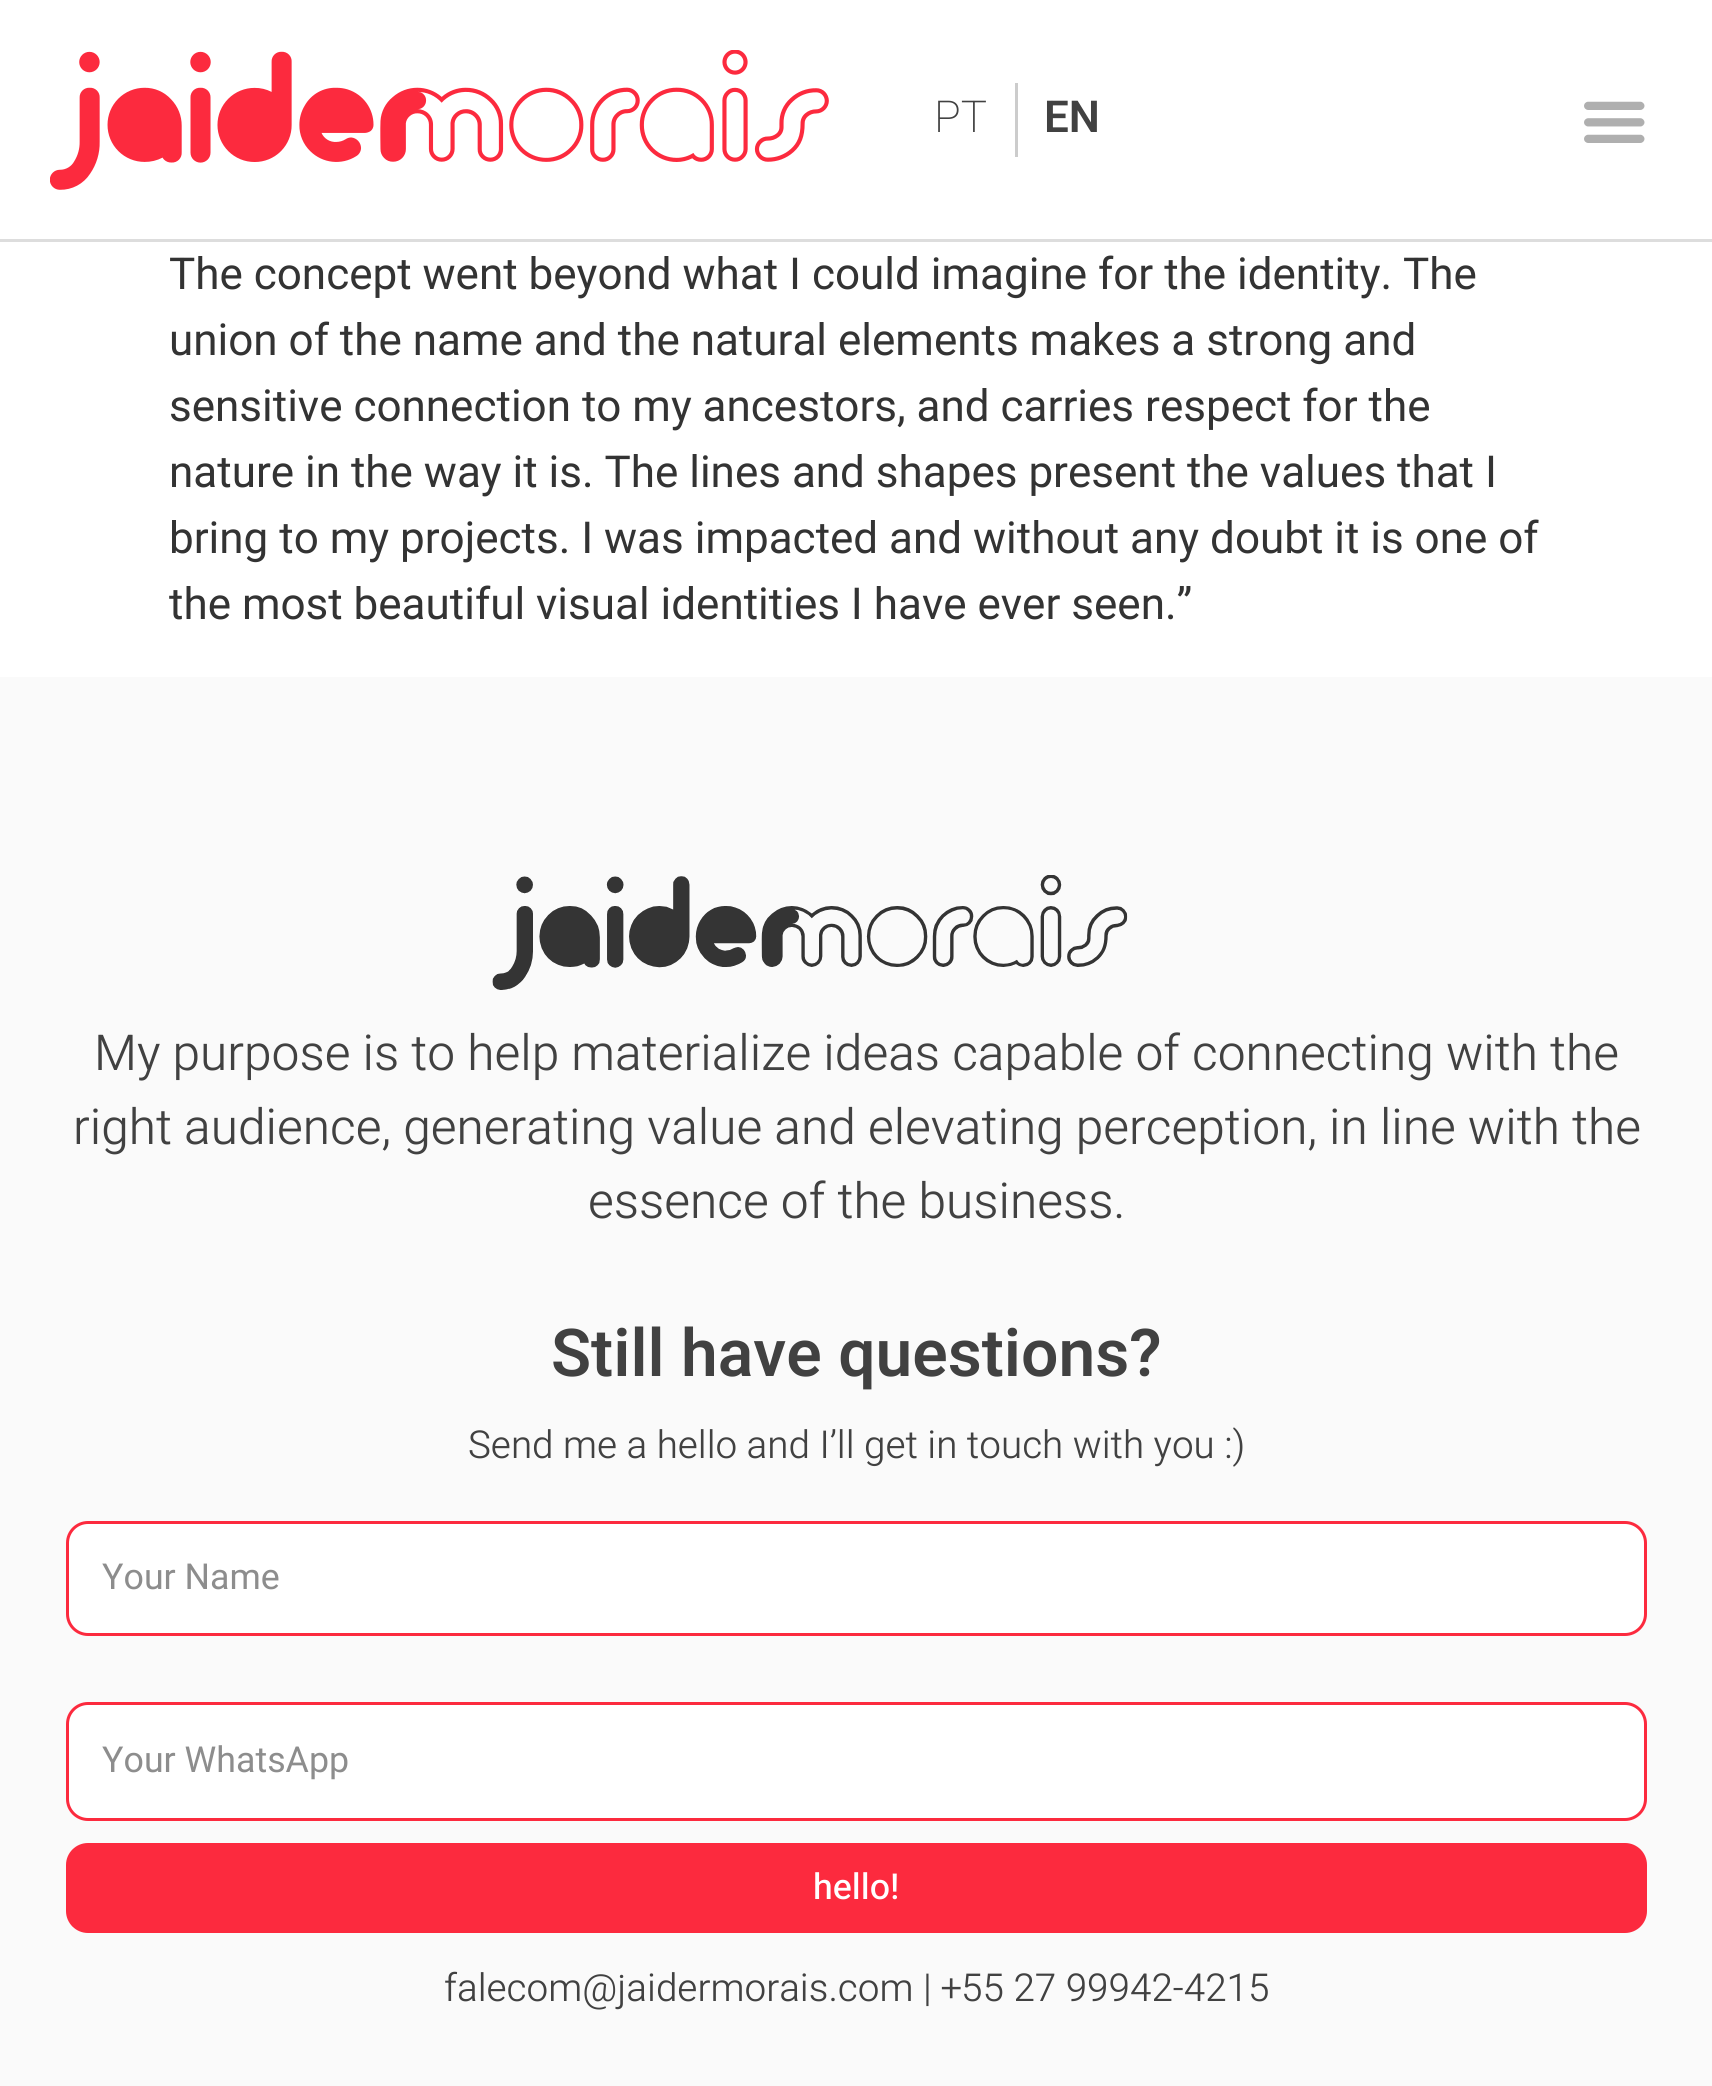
import math
import cairo

surface = cairo.ImageSurface(cairo.FORMAT_RGB24, 1712, 2086)
ctx = cairo.Context(surface)
options = cairo.FontOptions()
options.set_hint_metrics(cairo.HINT_METRICS_OFF)
options.set_hint_style(cairo.HINT_STYLE_NONE)
ctx.set_font_options(options)
ctx.set_miter_limit(4)


def round_rect(x, y, w, h, r):
    ctx.new_sub_path()
    for i, (u, v) in enumerate([(x + w - r, y + h - r), (x + r, y + h - r), (x + r, y + r), (x + w - r, y + r)]):
        ctx.arc(u, v, r, i * math.pi / 2, (i + 1) * math.pi / 2)
    ctx.close_path()


def picture(path, x, y, w, h):
    ctx.save()
    ctx.set_source_surface(cairo.ImageSurface.create_from_png(path), x, y)
    ctx.rectangle(x, y, w, h)
    ctx.fill()
    ctx.restore()


ctx.set_source_rgb(1, 1, 1)
ctx.paint()
ctx.set_source_rgb(0.867, 0.867, 0.867)
ctx.rectangle(0, 239, 1712, 3)
ctx.fill()
picture("img1.png", 50, 50, 779, 140)
ctx.set_source_rgb(0.8, 0.8, 0.8)
ctx.rectangle(1015, 83, 3, 74)
ctx.fill()
ctx.select_font_face("Roboto ExtraLight")
ctx.set_font_size(44)
ctx.set_source_rgb(0.255, 0.255, 0.255)
ctx.move_to(934, 132)
ctx.show_text("PT")
ctx.select_font_face("Roboto SemiBold")
ctx.move_to(1044, 132)
ctx.show_text("EN")
picture("img2.png", 1584, 101, 61, 42)
ctx.select_font_face("Roboto")
ctx.set_source_rgb(0.2, 0.2, 0.2)
ctx.move_to(169, 289)
ctx.show_text("The concept went beyond what I could imagine for the identity. The")
ctx.move_to(169, 355)
ctx.show_text("union of the name and the natural elements makes a strong and")
ctx.move_to(169, 421)
ctx.show_text("sensitive connection to my ancestors, and carries respect for the")
ctx.move_to(169, 487)
ctx.show_text("nature in the way it is. The lines and shapes present the values that I")
ctx.move_to(169, 553)
ctx.show_text("bring to my projects. I was impacted and without any doubt it is one of")
ctx.move_to(169, 619)
ctx.show_text("the most beautiful visual identities I have ever seen.”")
ctx.set_source_rgb(0.98, 0.98, 0.98)
ctx.rectangle(0, 677, 1712, 1409)
ctx.fill()
picture("img3.png", 492, 875, 636, 115)
ctx.select_font_face("Heebo Light")
ctx.set_font_size(49.5)
ctx.set_source_rgb(0.255, 0.255, 0.255)
ctx.move_to(94, 1070)
ctx.show_text("My purpose is to help materialize ideas capable of connecting with the")
ctx.move_to(73, 1144)
ctx.show_text("right audience, generating value and elevating perception, in line with the")
ctx.move_to(588, 1218)
ctx.show_text("essence of the business.")
ctx.select_font_face("Heebo SemiBold")
ctx.set_font_size(66)
ctx.move_to(551, 1376)
ctx.show_text("Still have questions?")
ctx.select_font_face("Heebo Light")
ctx.set_font_size(38.5)
ctx.move_to(468, 1458)
ctx.show_text("Send me a hello and I’ll get in touch with you :)")
ctx.set_source_rgb(1, 1, 1)
round_rect(67.5, 1522.5, 1578, 112, 20.5)
ctx.fill_preserve()
ctx.set_source_rgb(0.988, 0.165, 0.243)
ctx.set_line_width(3)
ctx.stroke()
ctx.select_font_face("Heebo")
ctx.set_font_size(35.75)
ctx.set_source_rgb(0.553, 0.553, 0.553)
ctx.move_to(102, 1589)
ctx.show_text("Your Name")
ctx.set_source_rgb(1, 1, 1)
round_rect(67.5, 1703.5, 1578, 116, 20.5)
ctx.fill_preserve()
ctx.set_source_rgb(0.988, 0.165, 0.243)
ctx.stroke()
ctx.set_source_rgb(0.553, 0.553, 0.553)
ctx.move_to(102, 1772)
ctx.show_text("Your WhatsApp")
ctx.set_source_rgb(0.988, 0.165, 0.243)
round_rect(66, 1843, 1581, 90, 22)
ctx.fill()
ctx.select_font_face("Heebo Medium")
ctx.set_source_rgb(1, 1, 1)
ctx.move_to(813, 1899)
ctx.show_text("hello!")
ctx.select_font_face("Heebo Light")
ctx.set_font_size(38.5)
ctx.set_source_rgb(0.255, 0.255, 0.255)
ctx.move_to(444, 2001)
ctx.show_text("falecom@jaidermorais.com | +55 27 99942-4215")
surface.write_to_png("page.png")
